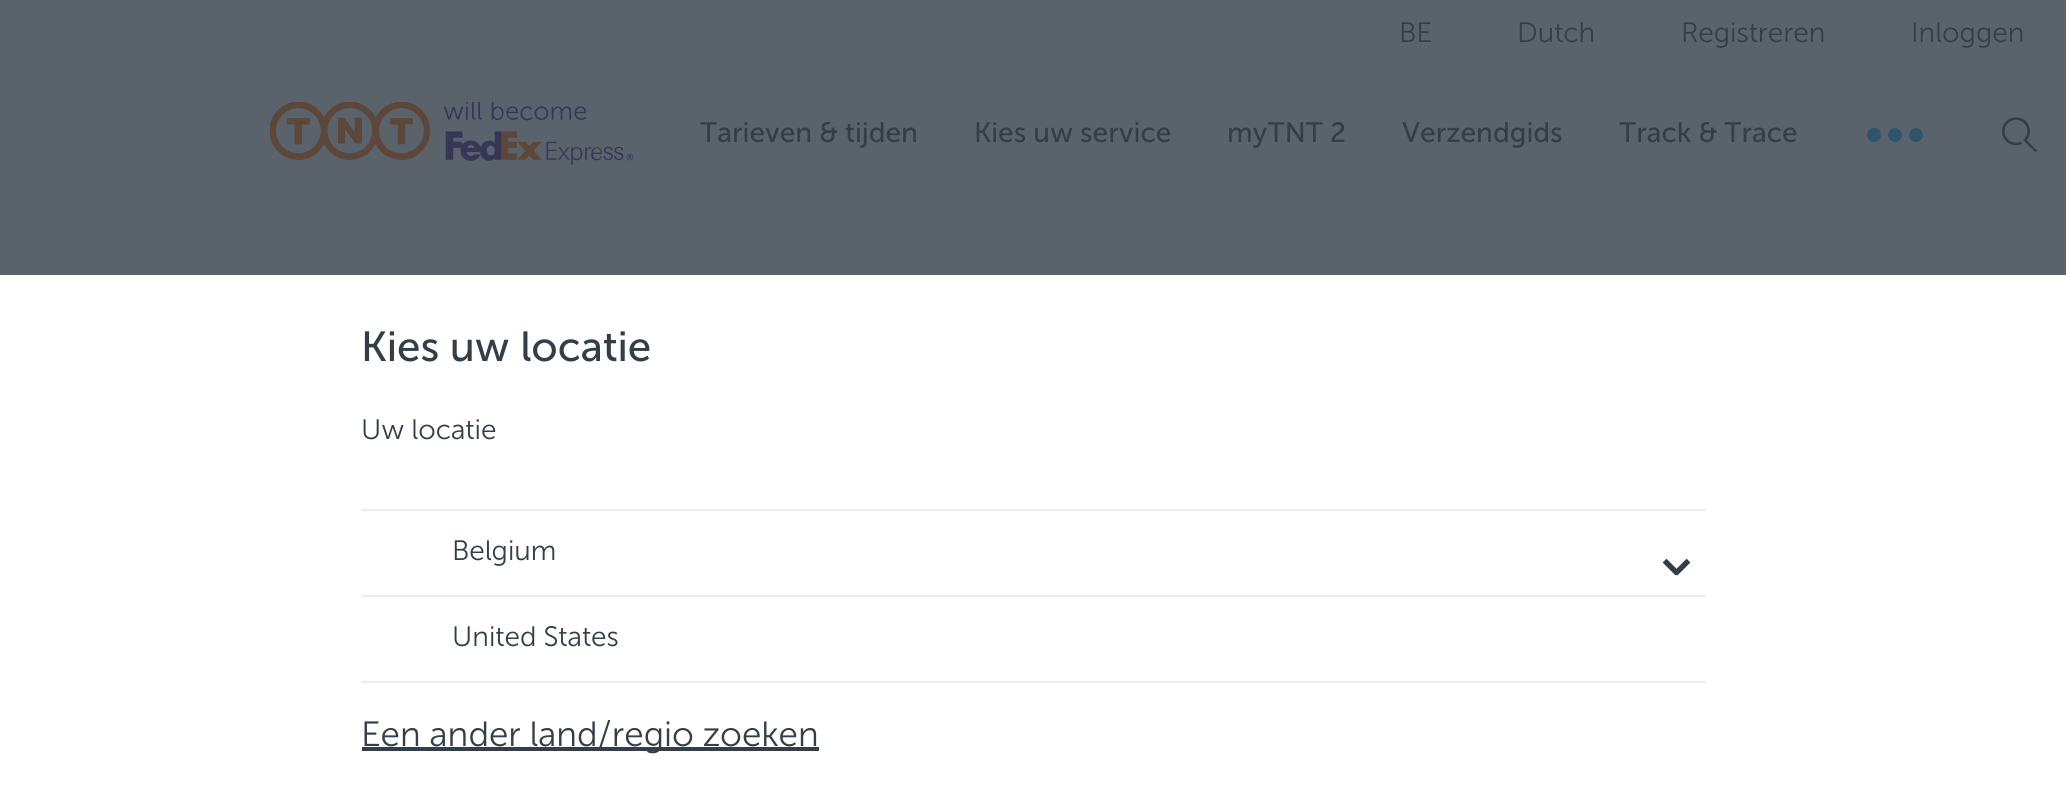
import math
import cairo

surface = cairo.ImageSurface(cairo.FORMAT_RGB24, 2066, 805)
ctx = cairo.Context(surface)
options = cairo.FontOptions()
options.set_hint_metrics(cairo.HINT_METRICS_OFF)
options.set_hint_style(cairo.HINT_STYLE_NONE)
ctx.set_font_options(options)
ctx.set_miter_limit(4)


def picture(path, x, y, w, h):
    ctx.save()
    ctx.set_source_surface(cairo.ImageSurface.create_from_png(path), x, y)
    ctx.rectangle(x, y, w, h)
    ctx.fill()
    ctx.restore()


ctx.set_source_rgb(0.353, 0.388, 0.42)
ctx.paint()
ctx.select_font_face("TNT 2")
ctx.set_font_size(28)
ctx.set_source_rgb(0.2, 0.247, 0.282)
ctx.move_to(1399, 42)
ctx.show_text("BE")
ctx.move_to(1517, 42)
ctx.show_text("Dutch")
ctx.move_to(1681, 42)
ctx.show_text("Registreren")
ctx.move_to(1911, 42)
ctx.show_text("Inloggen")
picture("img1.png", 270, 102, 364, 63)
ctx.select_font_face("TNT")
ctx.move_to(700, 142)
ctx.show_text("Tarieven & tijden")
ctx.move_to(974, 142)
ctx.show_text("Kies uw service")
ctx.move_to(1227, 142)
ctx.show_text("myTNT 2")
ctx.move_to(1402, 142)
ctx.show_text("Verzendgids")
ctx.move_to(1619, 142)
ctx.show_text("Track & Trace")
ctx.set_source_rgb(0.18, 0.337, 0.416)
ctx.new_path()
ctx.arc(1874, 135, 7, 0, 2 * math.pi)
ctx.fill()
ctx.arc(1895, 135, 7, 0, 2 * math.pi)
ctx.fill()
ctx.arc(1916, 135, 7, 0, 2 * math.pi)
ctx.fill()
picture("img2.png", 2002, 117, 35, 36)
ctx.set_source_rgb(1, 1, 1)
ctx.rectangle(0, 275, 2066, 530)
ctx.fill()
ctx.set_font_size(42)
ctx.set_source_rgb(0.2, 0.247, 0.282)
ctx.move_to(361, 361)
ctx.show_text("Kies uw locatie")
ctx.select_font_face("TNT 2")
ctx.set_font_size(28)
ctx.move_to(361, 439)
ctx.show_text("Uw locatie")
ctx.set_source_rgb(0.918, 0.922, 0.925)
ctx.rectangle(362, 509, 1344, 2)
ctx.fill()
ctx.rectangle(362, 681, 1344, 2)
ctx.fill()
ctx.rectangle(362, 595, 1344, 2)
ctx.fill()
ctx.set_source_rgb(0.2, 0.247, 0.282)
ctx.move_to(452, 560)
ctx.show_text("Belgium")
picture("img3.png", 1662, 558, 29, 18)
ctx.move_to(452, 646)
ctx.show_text("United States")
ctx.rectangle(362, 747, 457, 4)
ctx.fill()
ctx.set_font_size(35)
ctx.move_to(361, 746)
ctx.show_text("Een ander land/regio zoeken")
surface.write_to_png("page.png")
